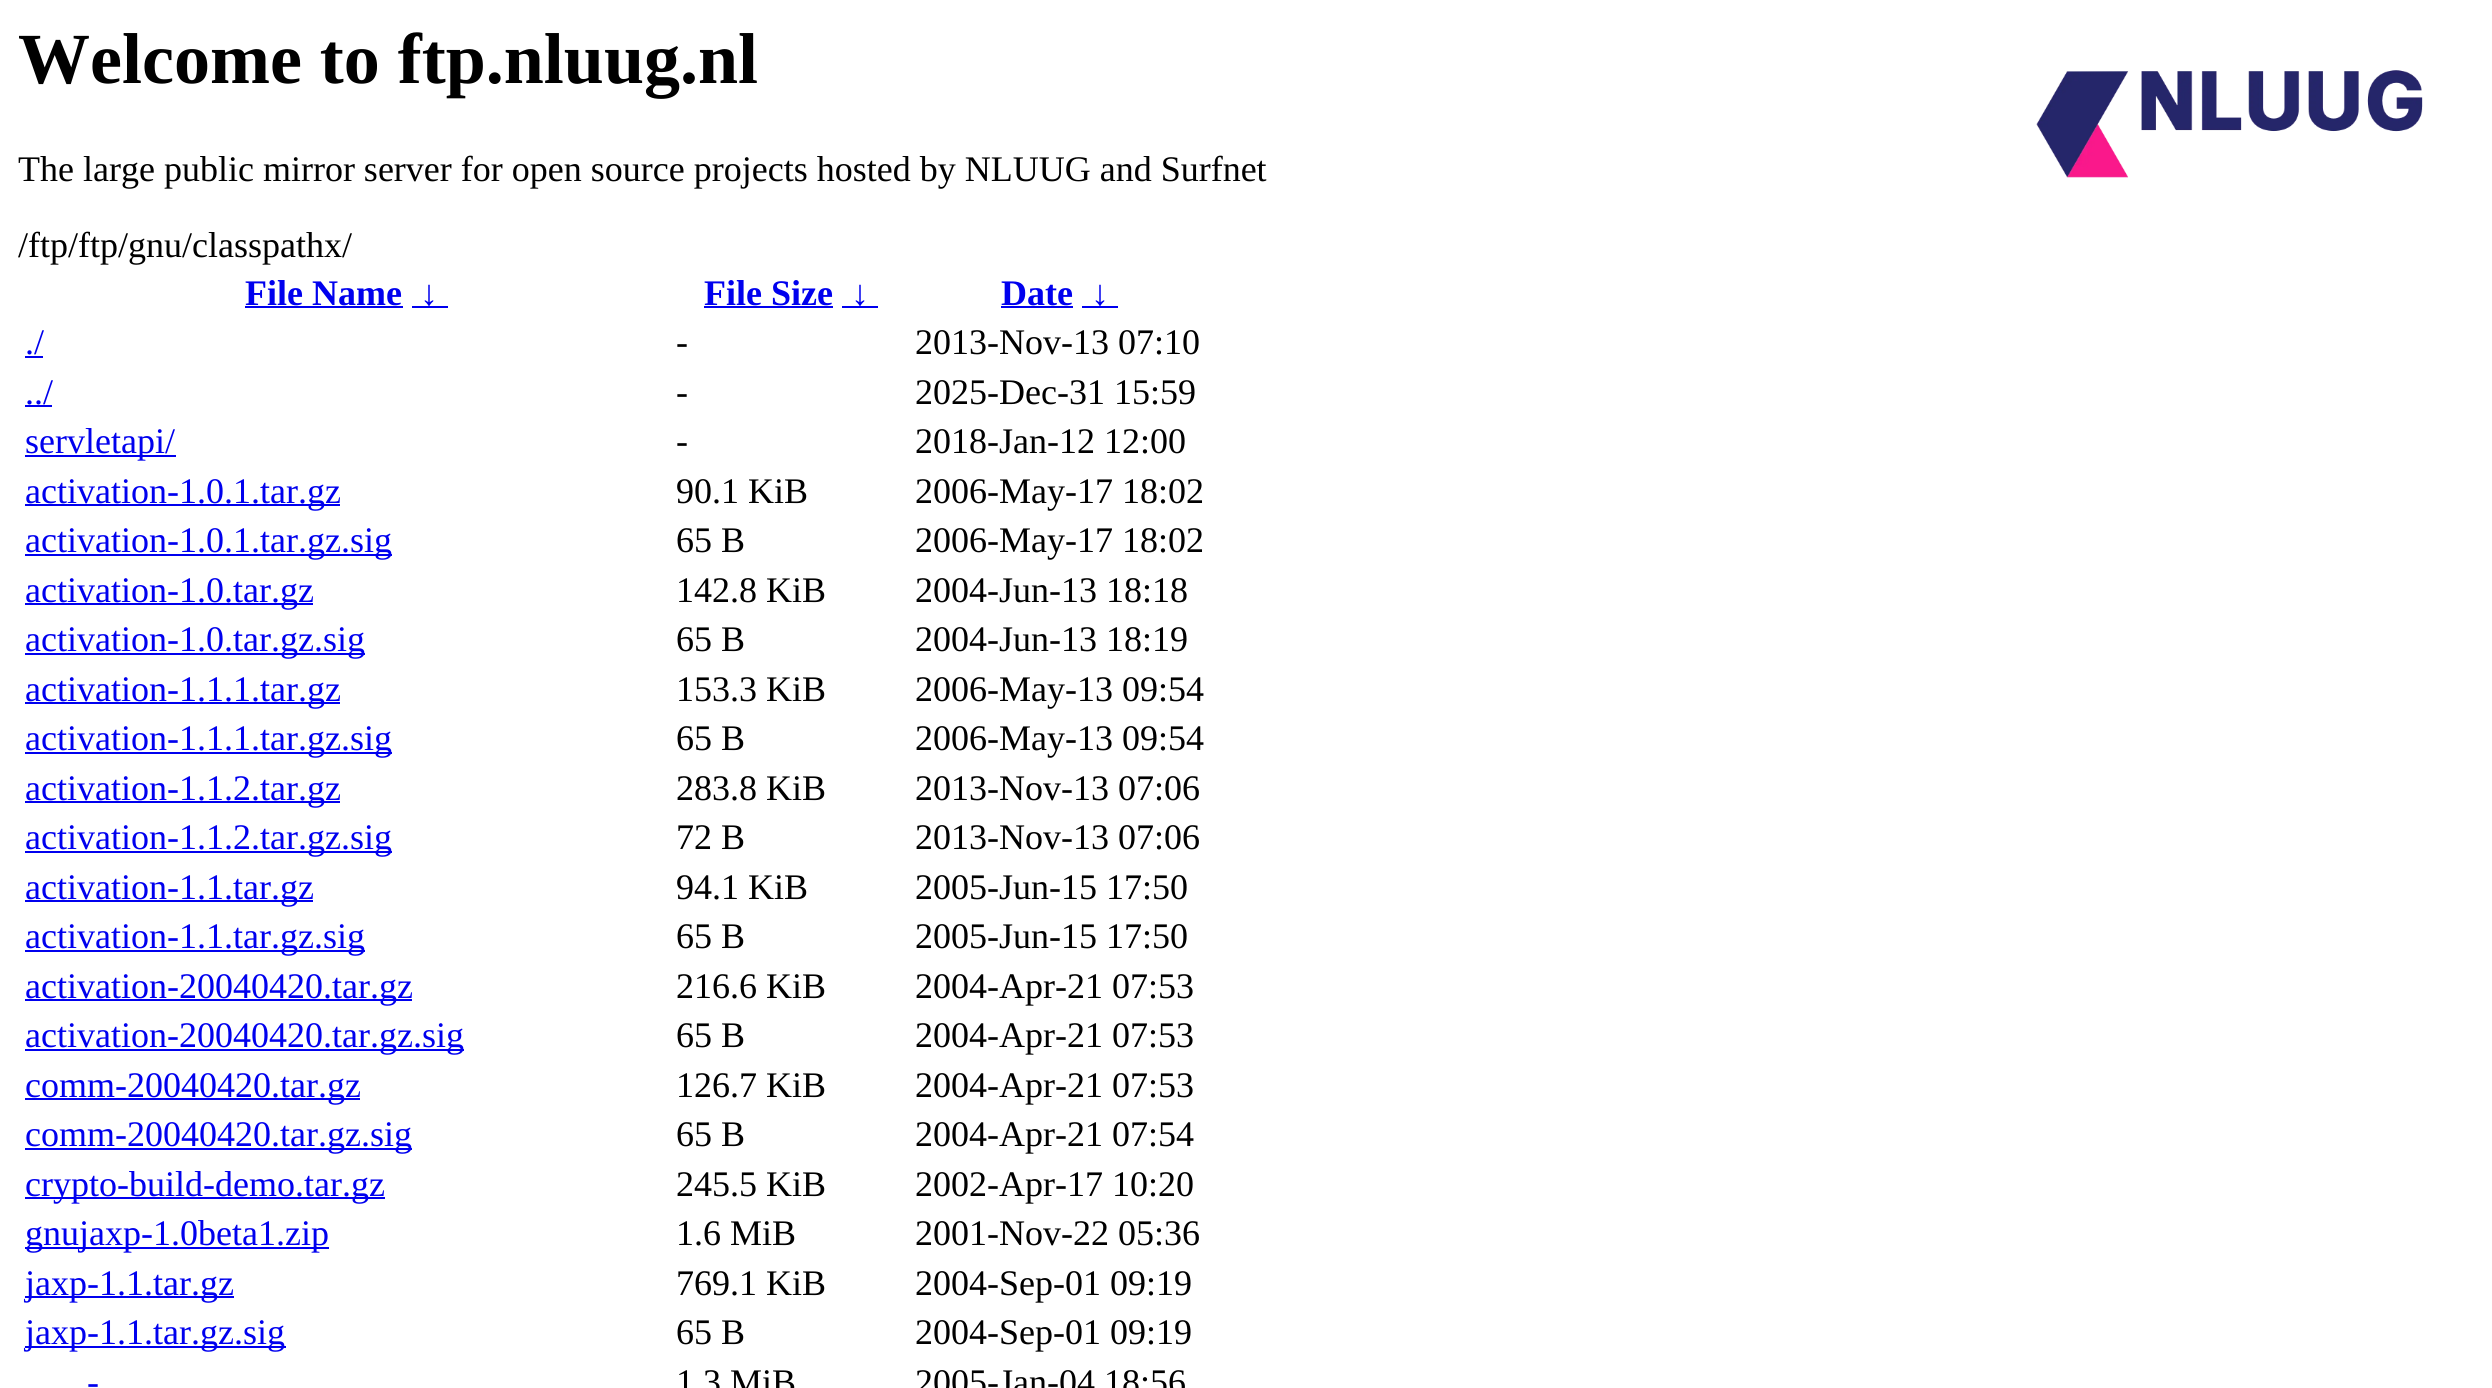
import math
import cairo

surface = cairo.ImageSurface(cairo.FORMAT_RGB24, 2492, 1388)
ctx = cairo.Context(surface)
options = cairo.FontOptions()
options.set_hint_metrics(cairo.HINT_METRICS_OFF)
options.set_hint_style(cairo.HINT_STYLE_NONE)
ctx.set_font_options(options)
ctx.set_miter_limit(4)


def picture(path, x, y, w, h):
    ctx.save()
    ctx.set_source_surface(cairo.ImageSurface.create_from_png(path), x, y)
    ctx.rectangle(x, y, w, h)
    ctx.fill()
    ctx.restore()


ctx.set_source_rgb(1, 1, 1)
ctx.paint()
ctx.select_font_face("Liberation Serif", cairo.FONT_SLANT_NORMAL, cairo.FONT_WEIGHT_BOLD)
ctx.set_font_size(72)
ctx.set_source_rgb(0, 0, 0)
ctx.move_to(18, 83)
ctx.show_text("Welcome to ftp.nluug.nl")
picture("img1.png", 2036, 70, 387, 108)
ctx.select_font_face("Liberation Serif")
ctx.set_font_size(36)
ctx.move_to(18, 181)
ctx.show_text("The large public mirror server for open source projects hosted by NLUUG and Surfnet")
ctx.move_to(18, 257)
ctx.show_text("/ftp/ftp/gnu/classpathx/")
ctx.select_font_face("Liberation Serif", cairo.FONT_SLANT_NORMAL, cairo.FONT_WEIGHT_BOLD)
ctx.set_source_rgb(0, 0, 0.933)
ctx.move_to(245, 305)
ctx.show_text("File Name")
ctx.rectangle(245, 306, 158, 2)
ctx.fill()
ctx.rectangle(412, 306, 36, 2)
ctx.fill()
ctx.move_to(420, 305)
ctx.show_text("↓")
ctx.move_to(704, 305)
ctx.show_text("File Size")
ctx.rectangle(704, 306, 129, 2)
ctx.fill()
ctx.rectangle(842, 306, 36, 2)
ctx.fill()
ctx.move_to(851, 305)
ctx.show_text("↓")
ctx.move_to(1001, 305)
ctx.show_text("Date")
ctx.rectangle(1001, 306, 72, 2)
ctx.fill()
ctx.rectangle(1082, 306, 36, 2)
ctx.fill()
ctx.move_to(1091, 305)
ctx.show_text("↓")
ctx.select_font_face("Liberation Serif")
ctx.move_to(25, 354)
ctx.show_text("./")
ctx.rectangle(25, 356, 18, 2)
ctx.fill()
ctx.set_source_rgb(0, 0, 0)
ctx.move_to(676, 354)
ctx.show_text("-")
ctx.move_to(915, 354)
ctx.show_text("2013-Nov-13 07:10")
ctx.set_source_rgb(0, 0, 0.933)
ctx.move_to(25, 404)
ctx.show_text("../")
ctx.rectangle(25, 405, 27, 2)
ctx.fill()
ctx.set_source_rgb(0, 0, 0)
ctx.move_to(676, 404)
ctx.show_text("-")
ctx.move_to(915, 404)
ctx.show_text("2025-Dec-31 15:59")
ctx.set_source_rgb(0, 0, 0.933)
ctx.rectangle(25, 455, 151, 2)
ctx.fill()
ctx.move_to(25, 453)
ctx.show_text("servletapi/")
ctx.set_source_rgb(0, 0, 0)
ctx.move_to(676, 453)
ctx.show_text("-")
ctx.move_to(915, 453)
ctx.show_text("2018-Jan-12 12:00")
ctx.set_source_rgb(0, 0, 0.933)
ctx.rectangle(25, 504, 315, 2)
ctx.fill()
ctx.move_to(25, 503)
ctx.show_text("activation-1.0.1.tar.gz")
ctx.set_source_rgb(0, 0, 0)
ctx.move_to(676, 503)
ctx.show_text("90.1 KiB")
ctx.move_to(915, 503)
ctx.show_text("2006-May-17 18:02")
ctx.set_source_rgb(0, 0, 0.933)
ctx.rectangle(25, 554, 367, 2)
ctx.fill()
ctx.move_to(25, 552)
ctx.show_text("activation-1.0.1.tar.gz.sig")
ctx.set_source_rgb(0, 0, 0)
ctx.move_to(676, 552)
ctx.show_text("65 B")
ctx.move_to(915, 552)
ctx.show_text("2006-May-17 18:02")
ctx.set_source_rgb(0, 0, 0.933)
ctx.rectangle(25, 603, 288, 2)
ctx.fill()
ctx.move_to(25, 602)
ctx.show_text("activation-1.0.tar.gz")
ctx.set_source_rgb(0, 0, 0)
ctx.move_to(676, 602)
ctx.show_text("142.8 KiB")
ctx.move_to(915, 602)
ctx.show_text("2004-Jun-13 18:18")
ctx.set_source_rgb(0, 0, 0.933)
ctx.rectangle(25, 653, 340, 2)
ctx.fill()
ctx.move_to(25, 651)
ctx.show_text("activation-1.0.tar.gz.sig")
ctx.set_source_rgb(0, 0, 0)
ctx.move_to(676, 651)
ctx.show_text("65 B")
ctx.move_to(915, 651)
ctx.show_text("2004-Jun-13 18:19")
ctx.set_source_rgb(0, 0, 0.933)
ctx.rectangle(25, 702, 315, 2)
ctx.fill()
ctx.move_to(25, 701)
ctx.show_text("activation-1.1.1.tar.gz")
ctx.set_source_rgb(0, 0, 0)
ctx.move_to(676, 701)
ctx.show_text("153.3 KiB")
ctx.move_to(915, 701)
ctx.show_text("2006-May-13 09:54")
ctx.set_source_rgb(0, 0, 0.933)
ctx.rectangle(25, 752, 367, 2)
ctx.fill()
ctx.move_to(25, 750)
ctx.show_text("activation-1.1.1.tar.gz.sig")
ctx.set_source_rgb(0, 0, 0)
ctx.move_to(676, 750)
ctx.show_text("65 B")
ctx.move_to(915, 750)
ctx.show_text("2006-May-13 09:54")
ctx.set_source_rgb(0, 0, 0.933)
ctx.rectangle(25, 801, 315, 2)
ctx.fill()
ctx.move_to(25, 800)
ctx.show_text("activation-1.1.2.tar.gz")
ctx.set_source_rgb(0, 0, 0)
ctx.move_to(676, 800)
ctx.show_text("283.8 KiB")
ctx.move_to(915, 800)
ctx.show_text("2013-Nov-13 07:06")
ctx.set_source_rgb(0, 0, 0.933)
ctx.rectangle(25, 851, 367, 2)
ctx.fill()
ctx.move_to(25, 849)
ctx.show_text("activation-1.1.2.tar.gz.sig")
ctx.set_source_rgb(0, 0, 0)
ctx.move_to(676, 849)
ctx.show_text("72 B")
ctx.move_to(915, 849)
ctx.show_text("2013-Nov-13 07:06")
ctx.set_source_rgb(0, 0, 0.933)
ctx.rectangle(25, 900, 288, 2)
ctx.fill()
ctx.move_to(25, 899)
ctx.show_text("activation-1.1.tar.gz")
ctx.set_source_rgb(0, 0, 0)
ctx.move_to(676, 899)
ctx.show_text("94.1 KiB")
ctx.move_to(915, 899)
ctx.show_text("2005-Jun-15 17:50")
ctx.set_source_rgb(0, 0, 0.933)
ctx.rectangle(25, 950, 340, 2)
ctx.fill()
ctx.move_to(25, 948)
ctx.show_text("activation-1.1.tar.gz.sig")
ctx.set_source_rgb(0, 0, 0)
ctx.move_to(676, 948)
ctx.show_text("65 B")
ctx.move_to(915, 948)
ctx.show_text("2005-Jun-15 17:50")
ctx.set_source_rgb(0, 0, 0.933)
ctx.rectangle(25, 999, 387, 2)
ctx.fill()
ctx.move_to(25, 998)
ctx.show_text("activation-20040420.tar.gz")
ctx.set_source_rgb(0, 0, 0)
ctx.move_to(676, 998)
ctx.show_text("216.6 KiB")
ctx.move_to(915, 998)
ctx.show_text("2004-Apr-21 07:53")
ctx.set_source_rgb(0, 0, 0.933)
ctx.rectangle(25, 1049, 439, 2)
ctx.fill()
ctx.move_to(25, 1047)
ctx.show_text("activation-20040420.tar.gz.sig")
ctx.set_source_rgb(0, 0, 0)
ctx.move_to(676, 1047)
ctx.show_text("65 B")
ctx.move_to(915, 1047)
ctx.show_text("2004-Apr-21 07:53")
ctx.set_source_rgb(0, 0, 0.933)
ctx.rectangle(25, 1098, 335, 2)
ctx.fill()
ctx.move_to(25, 1097)
ctx.show_text("comm-20040420.tar.gz")
ctx.set_source_rgb(0, 0, 0)
ctx.move_to(676, 1097)
ctx.show_text("126.7 KiB")
ctx.move_to(915, 1097)
ctx.show_text("2004-Apr-21 07:53")
ctx.set_source_rgb(0, 0, 0.933)
ctx.rectangle(25, 1148, 387, 2)
ctx.fill()
ctx.move_to(25, 1146)
ctx.show_text("comm-20040420.tar.gz.sig")
ctx.set_source_rgb(0, 0, 0)
ctx.move_to(676, 1146)
ctx.show_text("65 B")
ctx.move_to(915, 1146)
ctx.show_text("2004-Apr-21 07:54")
ctx.set_source_rgb(0, 0, 0.933)
ctx.rectangle(25, 1197, 360, 2)
ctx.fill()
ctx.move_to(25, 1196)
ctx.show_text("crypto-build-demo.tar.gz")
ctx.set_source_rgb(0, 0, 0)
ctx.move_to(676, 1196)
ctx.show_text("245.5 KiB")
ctx.move_to(915, 1196)
ctx.show_text("2002-Apr-17 10:20")
ctx.set_source_rgb(0, 0, 0.933)
ctx.rectangle(25, 1247, 304, 2)
ctx.fill()
ctx.move_to(25, 1245)
ctx.show_text("gnujaxp-1.0beta1.zip")
ctx.set_source_rgb(0, 0, 0)
ctx.move_to(676, 1245)
ctx.show_text("1.6 MiB")
ctx.move_to(915, 1245)
ctx.show_text("2001-Nov-22 05:36")
ctx.set_source_rgb(0, 0, 0.933)
ctx.rectangle(25, 1296, 209, 2)
ctx.fill()
ctx.move_to(25, 1295)
ctx.show_text("jaxp-1.1.tar.gz")
ctx.set_source_rgb(0, 0, 0)
ctx.move_to(676, 1295)
ctx.show_text("769.1 KiB")
ctx.move_to(915, 1295)
ctx.show_text("2004-Sep-01 09:19")
ctx.set_source_rgb(0, 0, 0.933)
ctx.rectangle(25, 1346, 261, 2)
ctx.fill()
ctx.move_to(25, 1344)
ctx.show_text("jaxp-1.1.tar.gz.sig")
ctx.set_source_rgb(0, 0, 0)
ctx.move_to(676, 1344)
ctx.show_text("65 B")
ctx.move_to(915, 1344)
ctx.show_text("2004-Sep-01 09:19")
ctx.set_source_rgb(0, 0, 0.933)
ctx.move_to(87, 1394)
ctx.show_text("-")
ctx.set_source_rgb(0, 0, 0)
ctx.move_to(676, 1394)
ctx.show_text("1.3 MiB")
ctx.move_to(915, 1394)
ctx.show_text("2005-Jan-04 18:56")
surface.write_to_png("page.png")
